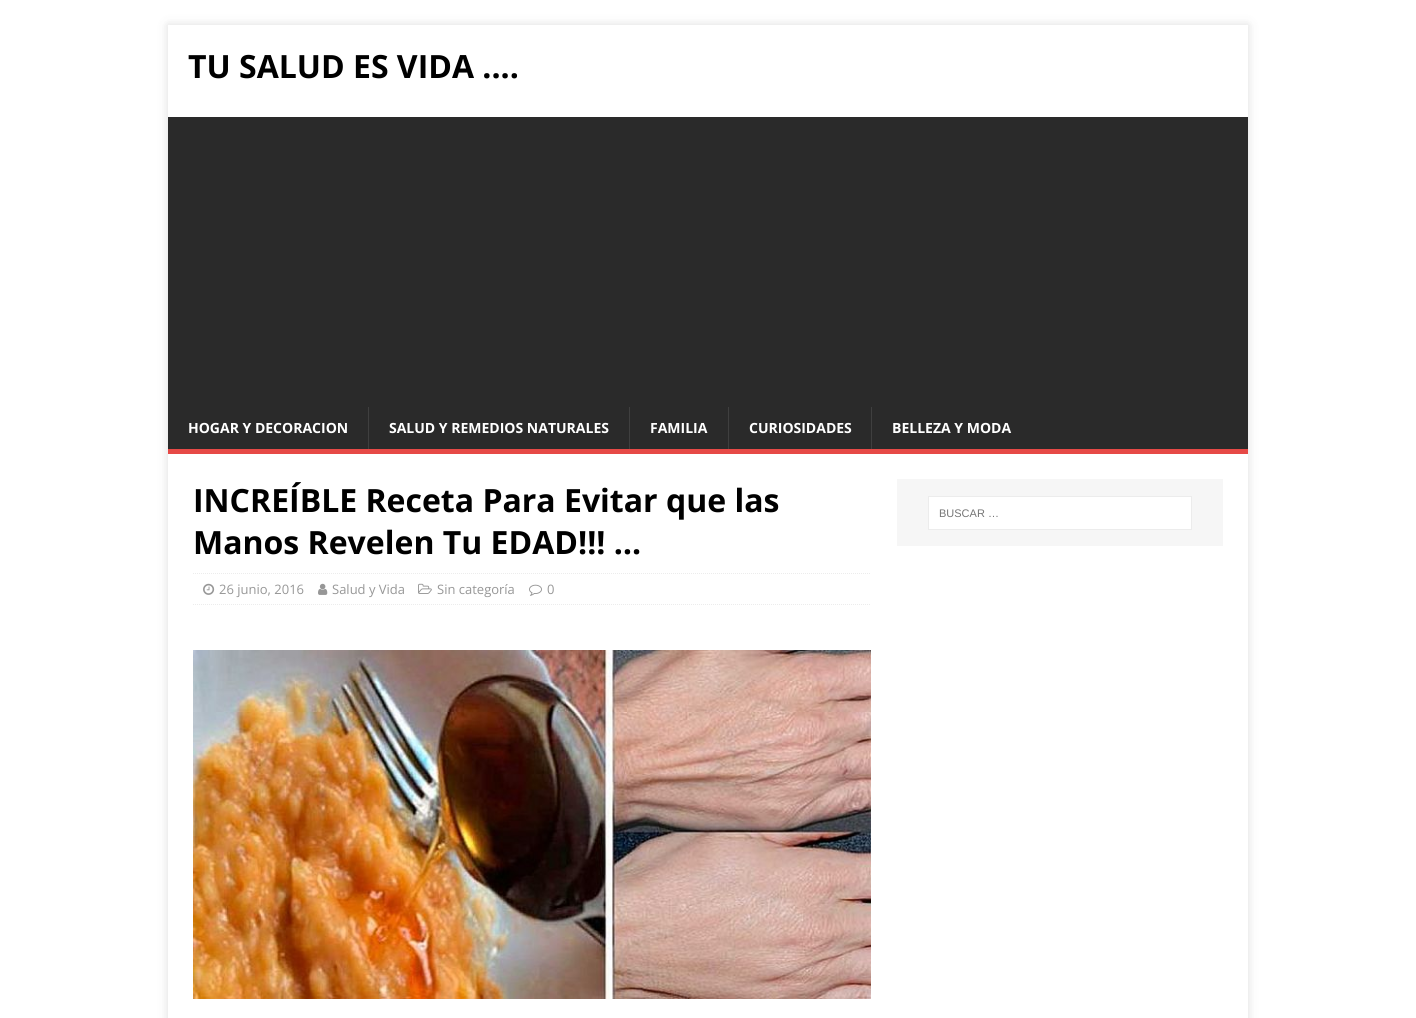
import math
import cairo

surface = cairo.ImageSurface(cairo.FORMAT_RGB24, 1416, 1018)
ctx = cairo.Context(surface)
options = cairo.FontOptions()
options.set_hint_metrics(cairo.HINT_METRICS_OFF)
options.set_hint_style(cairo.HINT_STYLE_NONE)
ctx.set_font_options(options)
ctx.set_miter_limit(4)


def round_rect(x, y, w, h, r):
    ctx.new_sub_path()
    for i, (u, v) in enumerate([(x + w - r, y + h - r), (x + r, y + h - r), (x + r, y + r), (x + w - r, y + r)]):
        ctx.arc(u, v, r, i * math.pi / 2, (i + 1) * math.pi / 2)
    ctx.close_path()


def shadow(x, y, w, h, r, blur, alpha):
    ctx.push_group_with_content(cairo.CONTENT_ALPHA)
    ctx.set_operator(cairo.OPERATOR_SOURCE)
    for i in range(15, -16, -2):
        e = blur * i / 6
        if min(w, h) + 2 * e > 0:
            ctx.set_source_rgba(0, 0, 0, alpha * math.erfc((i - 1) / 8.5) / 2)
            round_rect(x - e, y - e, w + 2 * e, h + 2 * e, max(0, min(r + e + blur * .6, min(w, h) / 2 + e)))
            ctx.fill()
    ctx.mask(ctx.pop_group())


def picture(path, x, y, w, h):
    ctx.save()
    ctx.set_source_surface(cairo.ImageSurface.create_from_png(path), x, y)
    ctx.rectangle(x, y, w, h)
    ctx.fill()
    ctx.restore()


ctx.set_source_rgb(1, 1, 1)
ctx.paint()
ctx.save()
ctx.set_fill_rule(cairo.FILL_RULE_EVEN_ODD)
ctx.new_path()
ctx.move_to(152, 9)
ctx.line_to(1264, 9)
ctx.line_to(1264, 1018)
ctx.line_to(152, 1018)
ctx.close_path()
ctx.move_to(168, 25)
ctx.line_to(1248, 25)
ctx.line_to(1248, 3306)
ctx.line_to(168, 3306)
ctx.close_path()
ctx.clip()
ctx.set_source_rgb(0.196, 0.196, 0.196)
shadow(168, 25, 1080, 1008, 0, 5, 0.17)
ctx.restore()
ctx.select_font_face("Open Sans", cairo.FONT_SLANT_NORMAL, cairo.FONT_WEIGHT_BOLD)
ctx.set_font_size(32)
ctx.set_source_rgb(0, 0, 0)
ctx.move_to(188, 78)
ctx.show_text("TU SALUD ES VIDA ....")
ctx.set_source_rgb(0.165, 0.165, 0.165)
ctx.rectangle(168, 117, 1080, 332)
ctx.fill()
ctx.set_source_rgb(0.902, 0.286, 0.275)
ctx.rectangle(168, 449, 1080, 5)
ctx.fill()
ctx.set_font_size(14)
ctx.set_source_rgb(1, 1, 1)
ctx.move_to(188, 433)
ctx.show_text("HOGAR Y DECORACION")
ctx.set_source_rgb(0.247, 0.247, 0.247)
ctx.rectangle(368, 407, 1, 42)
ctx.fill()
ctx.set_source_rgb(1, 1, 1)
ctx.move_to(389, 433)
ctx.show_text("SALUD Y REMEDIOS NATURALES")
ctx.set_source_rgb(0.247, 0.247, 0.247)
ctx.rectangle(629, 407, 1, 42)
ctx.fill()
ctx.set_source_rgb(1, 1, 1)
ctx.move_to(650, 433)
ctx.show_text("FAMILIA")
ctx.set_source_rgb(0.247, 0.247, 0.247)
ctx.rectangle(728, 407, 1, 42)
ctx.fill()
ctx.set_source_rgb(1, 1, 1)
ctx.move_to(749, 433)
ctx.show_text("CURIOSIDADES")
ctx.set_source_rgb(0.247, 0.247, 0.247)
ctx.rectangle(871, 407, 1, 42)
ctx.fill()
ctx.set_source_rgb(1, 1, 1)
ctx.move_to(892, 433)
ctx.show_text("BELLEZA Y MODA")
ctx.set_font_size(32)
ctx.set_source_rgb(0, 0, 0)
ctx.move_to(193, 512)
ctx.show_text("INCREÍBLE Receta Para Evitar que las")
ctx.move_to(193, 554)
ctx.show_text("Manos Revelen Tu EDAD!!! …")
ctx.new_path()
ctx.move_to(193, 573.5)
ctx.line_to(871, 573.5)
ctx.set_source_rgb(0.922, 0.922, 0.922)
ctx.set_line_width(1)
ctx.set_dash([1, 1])
ctx.stroke()
ctx.new_path()
ctx.move_to(193, 604.5)
ctx.line_to(871, 604.5)
ctx.stroke()
picture("img1.png", 203, 583, 12, 12)
ctx.select_font_face("Open Sans")
ctx.set_font_size(13)
ctx.set_source_rgb(0.592, 0.592, 0.592)
ctx.move_to(219, 594)
ctx.show_text("26 junio, 2016")
picture("img2.png", 318, 583, 10, 12)
ctx.move_to(332, 594)
ctx.show_text("Salud y Vida")
picture("img3.png", 418, 583, 14, 11)
ctx.move_to(437, 594)
ctx.show_text("Sin categoría")
picture("img4.png", 529, 584, 13, 12)
ctx.move_to(547, 594)
ctx.show_text("0")
picture("img5.png", 193, 650, 678, 349)
ctx.set_source_rgb(0.961, 0.961, 0.961)
ctx.rectangle(897, 479, 326, 67)
ctx.fill()
ctx.set_source_rgb(1, 1, 1)
ctx.rectangle(928.5, 496.5, 263, 33)
ctx.fill_preserve()
ctx.set_source_rgb(0.922, 0.922, 0.922)
ctx.set_dash([])
ctx.stroke()
ctx.select_font_face("Liberation Sans")
ctx.set_font_size(11)
ctx.set_source_rgb(0.459, 0.459, 0.459)
ctx.move_to(939, 517)
ctx.show_text("BUSCAR …")
surface.write_to_png("page.png")
